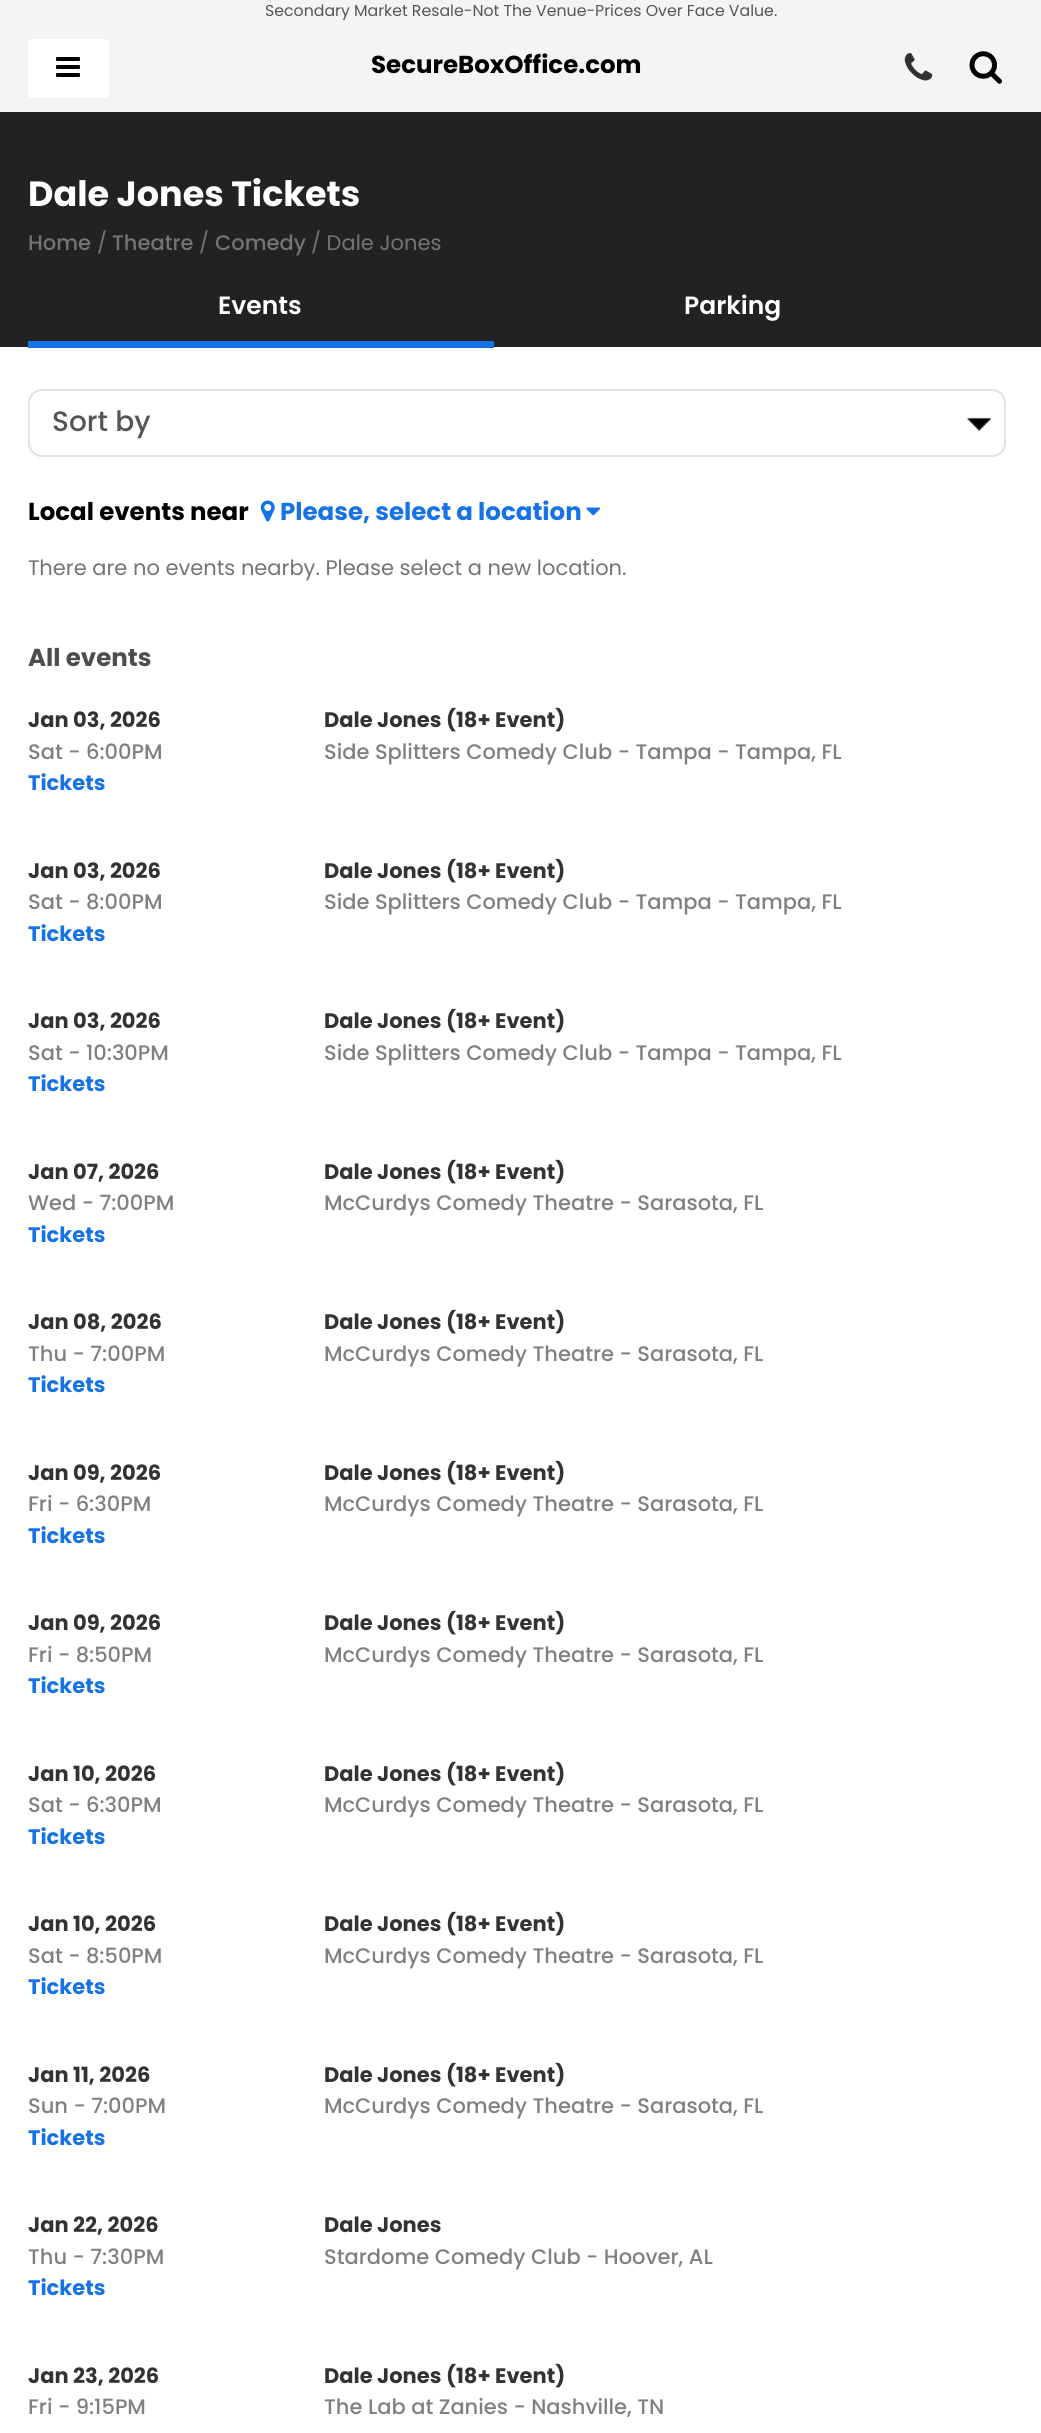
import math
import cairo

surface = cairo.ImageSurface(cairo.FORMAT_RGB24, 1041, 2433)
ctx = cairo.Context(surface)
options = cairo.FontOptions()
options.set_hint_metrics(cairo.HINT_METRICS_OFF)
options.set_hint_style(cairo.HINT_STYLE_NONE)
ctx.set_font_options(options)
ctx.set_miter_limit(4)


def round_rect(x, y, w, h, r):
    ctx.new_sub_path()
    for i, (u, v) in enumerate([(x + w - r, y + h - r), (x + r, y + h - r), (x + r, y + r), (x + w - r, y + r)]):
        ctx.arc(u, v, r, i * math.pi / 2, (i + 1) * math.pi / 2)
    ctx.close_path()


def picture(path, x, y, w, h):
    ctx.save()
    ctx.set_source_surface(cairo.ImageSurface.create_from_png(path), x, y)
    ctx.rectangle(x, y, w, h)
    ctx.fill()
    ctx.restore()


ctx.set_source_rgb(1, 1, 1)
ctx.paint()
ctx.set_source_rgb(0.957, 0.957, 0.957)
ctx.rectangle(0, 0, 1041, 112)
ctx.fill()
ctx.select_font_face("Poppins")
ctx.set_font_size(15.75)
ctx.set_source_rgb(0.333, 0.333, 0.333)
ctx.move_to(265, 16)
ctx.show_text("Secondary Market Resale-Not The Venue-Prices Over Face Value.")
ctx.set_source_rgb(1, 1, 1)
round_rect(28, 39, 81, 59, 4)
ctx.fill()
picture("img1.png", 56, 57, 24, 20)
ctx.select_font_face("Poppins", cairo.FONT_SLANT_NORMAL, cairo.FONT_WEIGHT_BOLD)
ctx.set_font_size(24.5)
ctx.set_source_rgb(0, 0, 0)
ctx.move_to(371, 73)
ctx.show_text("SecureBoxOffice.com")
picture("img2.png", 904, 53, 29, 28)
picture("img3.png", 969, 51, 33, 33)
ctx.set_source_rgb(0.133, 0.133, 0.133)
ctx.rectangle(0, 112, 1041, 235)
ctx.fill()
ctx.set_font_size(35)
ctx.set_source_rgb(1, 1, 1)
ctx.move_to(28, 206)
ctx.show_text("Dale Jones Tickets")
ctx.select_font_face("Poppins Medium")
ctx.set_font_size(21)
ctx.set_source_rgb(0.455, 0.455, 0.455)
ctx.move_to(28, 250)
ctx.show_text("Home")
ctx.select_font_face("Poppins")
ctx.move_to(97, 250)
ctx.show_text("/")
ctx.select_font_face("Poppins Medium")
ctx.move_to(112, 250)
ctx.show_text("Theatre")
ctx.select_font_face("Poppins")
ctx.move_to(199, 250)
ctx.show_text("/")
ctx.select_font_face("Poppins Medium")
ctx.move_to(215, 250)
ctx.show_text("Comedy")
ctx.select_font_face("Poppins")
ctx.move_to(311, 250)
ctx.show_text("/ Dale Jones")
ctx.set_source_rgb(0.086, 0.451, 0.902)
ctx.rectangle(28, 341, 466, 7)
ctx.fill()
ctx.select_font_face("Poppins SemiBold")
ctx.set_font_size(25)
ctx.set_source_rgb(1, 1, 1)
ctx.move_to(218, 314)
ctx.show_text("Events")
ctx.move_to(684, 314)
ctx.show_text("Parking")
picture("img4.png", 967, 417, 24, 14)
round_rect(29, 390, 976, 66, 13)
ctx.set_source_rgb(0.886, 0.886, 0.886)
ctx.stroke()
ctx.select_font_face("Poppins Medium")
ctx.set_font_size(28)
ctx.set_source_rgb(0.333, 0.333, 0.333)
ctx.move_to(52, 431)
ctx.show_text("Sort by")
ctx.select_font_face("Poppins", cairo.FONT_SLANT_NORMAL, cairo.FONT_WEIGHT_BOLD)
ctx.set_font_size(24.5)
ctx.set_source_rgb(0, 0, 0)
ctx.move_to(28, 520)
ctx.show_text("Local events near")
picture("img5.png", 260, 500, 15, 22)
ctx.set_source_rgb(0.086, 0.451, 0.902)
ctx.move_to(280, 520)
ctx.show_text("Please, select a location")
picture("img6.png", 586, 507, 15, 9)
ctx.select_font_face("Poppins")
ctx.set_font_size(21)
ctx.set_source_rgb(0.455, 0.455, 0.455)
ctx.move_to(28, 575)
ctx.show_text("There are no events nearby. Please select a new location.")
ctx.select_font_face("Poppins", cairo.FONT_SLANT_NORMAL, cairo.FONT_WEIGHT_BOLD)
ctx.set_font_size(24.5)
ctx.set_source_rgb(0.302, 0.302, 0.302)
ctx.move_to(28, 666)
ctx.show_text("All events")
ctx.set_font_size(21)
ctx.set_source_rgb(0.2, 0.2, 0.2)
ctx.move_to(28, 727)
ctx.show_text("Jan 03, 2026")
ctx.select_font_face("Poppins Medium")
ctx.set_source_rgb(0.502, 0.502, 0.502)
ctx.move_to(28, 759)
ctx.show_text("Sat - 6:00PM")
ctx.select_font_face("Poppins", cairo.FONT_SLANT_NORMAL, cairo.FONT_WEIGHT_BOLD)
ctx.set_source_rgb(0.086, 0.451, 0.902)
ctx.move_to(28, 790)
ctx.show_text("Tickets")
ctx.set_source_rgb(0.2, 0.2, 0.2)
ctx.move_to(324, 727)
ctx.show_text("Dale Jones (18+ Event)")
ctx.select_font_face("Poppins Medium")
ctx.set_source_rgb(0.502, 0.502, 0.502)
ctx.move_to(324, 759)
ctx.show_text("Side Splitters Comedy Club - Tampa - Tampa, FL")
ctx.select_font_face("Poppins", cairo.FONT_SLANT_NORMAL, cairo.FONT_WEIGHT_BOLD)
ctx.set_source_rgb(0.2, 0.2, 0.2)
ctx.move_to(28, 878)
ctx.show_text("Jan 03, 2026")
ctx.select_font_face("Poppins Medium")
ctx.set_source_rgb(0.502, 0.502, 0.502)
ctx.move_to(28, 909)
ctx.show_text("Sat - 8:00PM")
ctx.select_font_face("Poppins", cairo.FONT_SLANT_NORMAL, cairo.FONT_WEIGHT_BOLD)
ctx.set_source_rgb(0.086, 0.451, 0.902)
ctx.move_to(28, 941)
ctx.show_text("Tickets")
ctx.set_source_rgb(0.2, 0.2, 0.2)
ctx.move_to(324, 878)
ctx.show_text("Dale Jones (18+ Event)")
ctx.select_font_face("Poppins Medium")
ctx.set_source_rgb(0.502, 0.502, 0.502)
ctx.move_to(324, 909)
ctx.show_text("Side Splitters Comedy Club - Tampa - Tampa, FL")
ctx.select_font_face("Poppins", cairo.FONT_SLANT_NORMAL, cairo.FONT_WEIGHT_BOLD)
ctx.set_source_rgb(0.2, 0.2, 0.2)
ctx.move_to(28, 1028)
ctx.show_text("Jan 03, 2026")
ctx.select_font_face("Poppins Medium")
ctx.set_source_rgb(0.502, 0.502, 0.502)
ctx.move_to(28, 1060)
ctx.show_text("Sat - 10:30PM")
ctx.select_font_face("Poppins", cairo.FONT_SLANT_NORMAL, cairo.FONT_WEIGHT_BOLD)
ctx.set_source_rgb(0.086, 0.451, 0.902)
ctx.move_to(28, 1091)
ctx.show_text("Tickets")
ctx.set_source_rgb(0.2, 0.2, 0.2)
ctx.move_to(324, 1028)
ctx.show_text("Dale Jones (18+ Event)")
ctx.select_font_face("Poppins Medium")
ctx.set_source_rgb(0.502, 0.502, 0.502)
ctx.move_to(324, 1060)
ctx.show_text("Side Splitters Comedy Club - Tampa - Tampa, FL")
ctx.select_font_face("Poppins", cairo.FONT_SLANT_NORMAL, cairo.FONT_WEIGHT_BOLD)
ctx.set_source_rgb(0.2, 0.2, 0.2)
ctx.move_to(28, 1179)
ctx.show_text("Jan 07, 2026")
ctx.select_font_face("Poppins Medium")
ctx.set_source_rgb(0.502, 0.502, 0.502)
ctx.move_to(28, 1210)
ctx.show_text("Wed - 7:00PM")
ctx.select_font_face("Poppins", cairo.FONT_SLANT_NORMAL, cairo.FONT_WEIGHT_BOLD)
ctx.set_source_rgb(0.086, 0.451, 0.902)
ctx.move_to(28, 1242)
ctx.show_text("Tickets")
ctx.set_source_rgb(0.2, 0.2, 0.2)
ctx.move_to(324, 1179)
ctx.show_text("Dale Jones (18+ Event)")
ctx.select_font_face("Poppins Medium")
ctx.set_source_rgb(0.502, 0.502, 0.502)
ctx.move_to(324, 1210)
ctx.show_text("McCurdys Comedy Theatre - Sarasota, FL")
ctx.select_font_face("Poppins", cairo.FONT_SLANT_NORMAL, cairo.FONT_WEIGHT_BOLD)
ctx.set_source_rgb(0.2, 0.2, 0.2)
ctx.move_to(28, 1329)
ctx.show_text("Jan 08, 2026")
ctx.select_font_face("Poppins Medium")
ctx.set_source_rgb(0.502, 0.502, 0.502)
ctx.move_to(28, 1361)
ctx.show_text("Thu - 7:00PM")
ctx.select_font_face("Poppins", cairo.FONT_SLANT_NORMAL, cairo.FONT_WEIGHT_BOLD)
ctx.set_source_rgb(0.086, 0.451, 0.902)
ctx.move_to(28, 1392)
ctx.show_text("Tickets")
ctx.set_source_rgb(0.2, 0.2, 0.2)
ctx.move_to(324, 1329)
ctx.show_text("Dale Jones (18+ Event)")
ctx.select_font_face("Poppins Medium")
ctx.set_source_rgb(0.502, 0.502, 0.502)
ctx.move_to(324, 1361)
ctx.show_text("McCurdys Comedy Theatre - Sarasota, FL")
ctx.select_font_face("Poppins", cairo.FONT_SLANT_NORMAL, cairo.FONT_WEIGHT_BOLD)
ctx.set_source_rgb(0.2, 0.2, 0.2)
ctx.move_to(28, 1480)
ctx.show_text("Jan 09, 2026")
ctx.select_font_face("Poppins Medium")
ctx.set_source_rgb(0.502, 0.502, 0.502)
ctx.move_to(28, 1511)
ctx.show_text("Fri - 6:30PM")
ctx.select_font_face("Poppins", cairo.FONT_SLANT_NORMAL, cairo.FONT_WEIGHT_BOLD)
ctx.set_source_rgb(0.086, 0.451, 0.902)
ctx.move_to(28, 1543)
ctx.show_text("Tickets")
ctx.set_source_rgb(0.2, 0.2, 0.2)
ctx.move_to(324, 1480)
ctx.show_text("Dale Jones (18+ Event)")
ctx.select_font_face("Poppins Medium")
ctx.set_source_rgb(0.502, 0.502, 0.502)
ctx.move_to(324, 1511)
ctx.show_text("McCurdys Comedy Theatre - Sarasota, FL")
ctx.select_font_face("Poppins", cairo.FONT_SLANT_NORMAL, cairo.FONT_WEIGHT_BOLD)
ctx.set_source_rgb(0.2, 0.2, 0.2)
ctx.move_to(28, 1630)
ctx.show_text("Jan 09, 2026")
ctx.select_font_face("Poppins Medium")
ctx.set_source_rgb(0.502, 0.502, 0.502)
ctx.move_to(28, 1662)
ctx.show_text("Fri - 8:50PM")
ctx.select_font_face("Poppins", cairo.FONT_SLANT_NORMAL, cairo.FONT_WEIGHT_BOLD)
ctx.set_source_rgb(0.086, 0.451, 0.902)
ctx.move_to(28, 1693)
ctx.show_text("Tickets")
ctx.set_source_rgb(0.2, 0.2, 0.2)
ctx.move_to(324, 1630)
ctx.show_text("Dale Jones (18+ Event)")
ctx.select_font_face("Poppins Medium")
ctx.set_source_rgb(0.502, 0.502, 0.502)
ctx.move_to(324, 1662)
ctx.show_text("McCurdys Comedy Theatre - Sarasota, FL")
ctx.select_font_face("Poppins", cairo.FONT_SLANT_NORMAL, cairo.FONT_WEIGHT_BOLD)
ctx.set_source_rgb(0.2, 0.2, 0.2)
ctx.move_to(28, 1781)
ctx.show_text("Jan 10, 2026")
ctx.select_font_face("Poppins Medium")
ctx.set_source_rgb(0.502, 0.502, 0.502)
ctx.move_to(28, 1812)
ctx.show_text("Sat - 6:30PM")
ctx.select_font_face("Poppins", cairo.FONT_SLANT_NORMAL, cairo.FONT_WEIGHT_BOLD)
ctx.set_source_rgb(0.086, 0.451, 0.902)
ctx.move_to(28, 1844)
ctx.show_text("Tickets")
ctx.set_source_rgb(0.2, 0.2, 0.2)
ctx.move_to(324, 1781)
ctx.show_text("Dale Jones (18+ Event)")
ctx.select_font_face("Poppins Medium")
ctx.set_source_rgb(0.502, 0.502, 0.502)
ctx.move_to(324, 1812)
ctx.show_text("McCurdys Comedy Theatre - Sarasota, FL")
ctx.select_font_face("Poppins", cairo.FONT_SLANT_NORMAL, cairo.FONT_WEIGHT_BOLD)
ctx.set_source_rgb(0.2, 0.2, 0.2)
ctx.move_to(28, 1931)
ctx.show_text("Jan 10, 2026")
ctx.select_font_face("Poppins Medium")
ctx.set_source_rgb(0.502, 0.502, 0.502)
ctx.move_to(28, 1963)
ctx.show_text("Sat - 8:50PM")
ctx.select_font_face("Poppins", cairo.FONT_SLANT_NORMAL, cairo.FONT_WEIGHT_BOLD)
ctx.set_source_rgb(0.086, 0.451, 0.902)
ctx.move_to(28, 1994)
ctx.show_text("Tickets")
ctx.set_source_rgb(0.2, 0.2, 0.2)
ctx.move_to(324, 1931)
ctx.show_text("Dale Jones (18+ Event)")
ctx.select_font_face("Poppins Medium")
ctx.set_source_rgb(0.502, 0.502, 0.502)
ctx.move_to(324, 1963)
ctx.show_text("McCurdys Comedy Theatre - Sarasota, FL")
ctx.select_font_face("Poppins", cairo.FONT_SLANT_NORMAL, cairo.FONT_WEIGHT_BOLD)
ctx.set_source_rgb(0.2, 0.2, 0.2)
ctx.move_to(28, 2082)
ctx.show_text("Jan 11, 2026")
ctx.select_font_face("Poppins Medium")
ctx.set_source_rgb(0.502, 0.502, 0.502)
ctx.move_to(28, 2113)
ctx.show_text("Sun - 7:00PM")
ctx.select_font_face("Poppins", cairo.FONT_SLANT_NORMAL, cairo.FONT_WEIGHT_BOLD)
ctx.set_source_rgb(0.086, 0.451, 0.902)
ctx.move_to(28, 2145)
ctx.show_text("Tickets")
ctx.set_source_rgb(0.2, 0.2, 0.2)
ctx.move_to(324, 2082)
ctx.show_text("Dale Jones (18+ Event)")
ctx.select_font_face("Poppins Medium")
ctx.set_source_rgb(0.502, 0.502, 0.502)
ctx.move_to(324, 2113)
ctx.show_text("McCurdys Comedy Theatre - Sarasota, FL")
ctx.select_font_face("Poppins", cairo.FONT_SLANT_NORMAL, cairo.FONT_WEIGHT_BOLD)
ctx.set_source_rgb(0.2, 0.2, 0.2)
ctx.move_to(28, 2232)
ctx.show_text("Jan 22, 2026")
ctx.select_font_face("Poppins Medium")
ctx.set_source_rgb(0.502, 0.502, 0.502)
ctx.move_to(28, 2264)
ctx.show_text("Thu - 7:30PM")
ctx.select_font_face("Poppins", cairo.FONT_SLANT_NORMAL, cairo.FONT_WEIGHT_BOLD)
ctx.set_source_rgb(0.086, 0.451, 0.902)
ctx.move_to(28, 2295)
ctx.show_text("Tickets")
ctx.set_source_rgb(0.2, 0.2, 0.2)
ctx.move_to(324, 2232)
ctx.show_text("Dale Jones")
ctx.select_font_face("Poppins Medium")
ctx.set_source_rgb(0.502, 0.502, 0.502)
ctx.move_to(324, 2264)
ctx.show_text("Stardome Comedy Club - Hoover, AL")
ctx.select_font_face("Poppins", cairo.FONT_SLANT_NORMAL, cairo.FONT_WEIGHT_BOLD)
ctx.set_source_rgb(0.2, 0.2, 0.2)
ctx.move_to(28, 2383)
ctx.show_text("Jan 23, 2026")
ctx.select_font_face("Poppins Medium")
ctx.set_source_rgb(0.502, 0.502, 0.502)
ctx.move_to(28, 2414)
ctx.show_text("Fri - 9:15PM")
ctx.select_font_face("Poppins", cairo.FONT_SLANT_NORMAL, cairo.FONT_WEIGHT_BOLD)
ctx.set_source_rgb(0.2, 0.2, 0.2)
ctx.move_to(324, 2383)
ctx.show_text("Dale Jones (18+ Event)")
ctx.select_font_face("Poppins Medium")
ctx.set_source_rgb(0.502, 0.502, 0.502)
ctx.move_to(324, 2414)
ctx.show_text("The Lab at Zanies - Nashville, TN")
surface.write_to_png("page.png")
